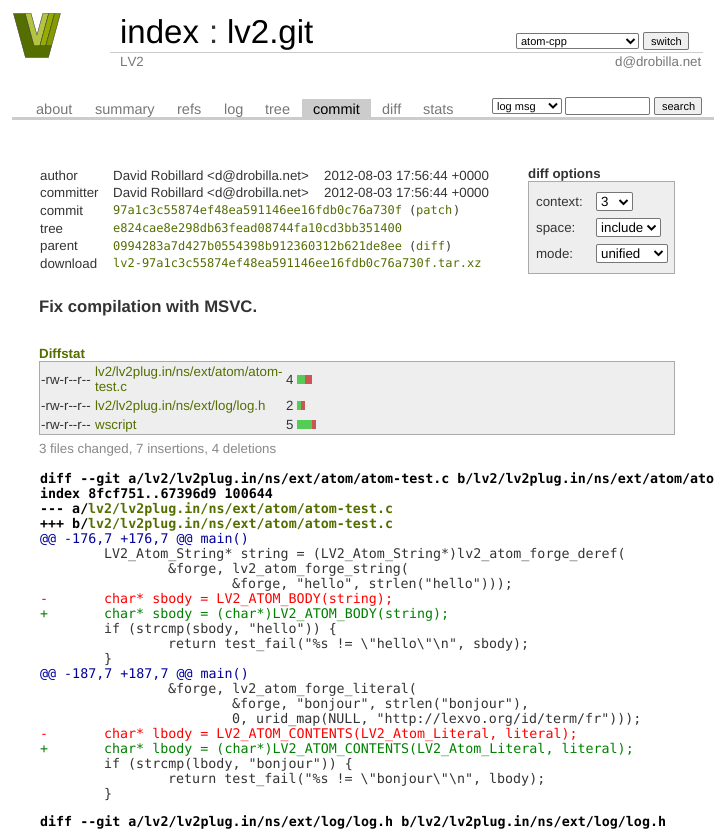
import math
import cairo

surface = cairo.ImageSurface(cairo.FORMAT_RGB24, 714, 836)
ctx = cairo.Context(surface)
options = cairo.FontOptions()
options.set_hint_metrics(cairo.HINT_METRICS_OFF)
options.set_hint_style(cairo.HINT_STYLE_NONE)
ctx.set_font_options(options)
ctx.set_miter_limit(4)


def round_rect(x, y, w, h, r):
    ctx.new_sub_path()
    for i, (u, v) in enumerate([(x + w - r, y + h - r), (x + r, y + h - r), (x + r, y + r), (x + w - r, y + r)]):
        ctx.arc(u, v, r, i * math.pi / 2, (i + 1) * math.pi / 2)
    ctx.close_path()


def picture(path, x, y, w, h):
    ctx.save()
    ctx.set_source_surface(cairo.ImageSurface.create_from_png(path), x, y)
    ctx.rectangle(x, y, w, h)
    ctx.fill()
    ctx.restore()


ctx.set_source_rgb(1, 1, 1)
ctx.paint()
picture("img1.png", 13, 13, 48, 45)
ctx.select_font_face("Liberation Sans")
ctx.set_font_size(33)
ctx.set_source_rgb(0, 0, 0)
ctx.move_to(120, 43)
ctx.show_text("index")
ctx.set_source_rgb(0.2, 0.2, 0.2)
ctx.move_to(209, 43)
ctx.show_text(":")
ctx.set_source_rgb(0, 0, 0)
ctx.move_to(227, 43)
ctx.show_text("lv2.git")
round_rect(516.5, 33.5, 122, 15, 1.5)
ctx.set_source_rgb(0.463, 0.463, 0.463)
ctx.set_line_width(1)
ctx.stroke()
ctx.new_path()
ctx.move_to(626.5, 39)
ctx.line_to(630.5, 43)
ctx.line_to(634.5, 39)
ctx.set_source_rgb(0, 0, 0)
ctx.set_line_width(2)
ctx.stroke()
ctx.set_font_size(11)
ctx.move_to(521, 45)
ctx.show_text("atom-cpp")
ctx.set_source_rgb(0.937, 0.937, 0.937)
round_rect(643.5, 32.5, 45, 17, 1.5)
ctx.fill_preserve()
ctx.set_source_rgb(0.463, 0.463, 0.463)
ctx.set_line_width(1)
ctx.stroke()
ctx.set_source_rgb(0, 0, 0)
ctx.move_to(651, 45)
ctx.show_text("switch")
ctx.set_font_size(13.33)
ctx.set_source_rgb(0.467, 0.467, 0.467)
ctx.move_to(120, 66)
ctx.show_text("LV2")
ctx.set_source_rgb(0.8, 0.8, 0.8)
ctx.rectangle(110, 52, 593, 1)
ctx.fill()
ctx.set_source_rgb(0.467, 0.467, 0.467)
ctx.move_to(615, 66)
ctx.show_text("d@drobilla.net")
ctx.set_source_rgb(0.8, 0.8, 0.8)
ctx.rectangle(12, 117, 702, 3)
ctx.fill()
ctx.set_font_size(14.5)
ctx.set_source_rgb(0.467, 0.467, 0.467)
ctx.move_to(36, 114)
ctx.show_text("about")
ctx.move_to(95, 114)
ctx.show_text("summary")
ctx.move_to(177, 114)
ctx.show_text("refs")
ctx.move_to(224, 114)
ctx.show_text("log")
ctx.move_to(265, 114)
ctx.show_text("tree")
ctx.set_source_rgb(0.8, 0.8, 0.8)
ctx.rectangle(302, 99, 69, 18)
ctx.fill()
ctx.set_source_rgb(0, 0, 0)
ctx.move_to(313, 114)
ctx.show_text("commit")
ctx.set_source_rgb(0.467, 0.467, 0.467)
ctx.move_to(382, 114)
ctx.show_text("diff")
ctx.move_to(423, 114)
ctx.show_text("stats")
round_rect(492.5, 98.5, 69, 15, 1.5)
ctx.set_source_rgb(0.463, 0.463, 0.463)
ctx.stroke()
ctx.new_path()
ctx.move_to(549, 103.5)
ctx.line_to(553, 107.5)
ctx.line_to(557, 103.5)
ctx.set_source_rgb(0, 0, 0)
ctx.set_line_width(2)
ctx.stroke()
ctx.set_font_size(11)
ctx.move_to(497, 110)
ctx.show_text("log msg")
round_rect(565.5, 97.5, 84, 17, 1.5)
ctx.set_source_rgb(0.463, 0.463, 0.463)
ctx.set_line_width(1)
ctx.stroke()
ctx.set_source_rgb(0.937, 0.937, 0.937)
round_rect(654.5, 97.5, 47, 17, 1.5)
ctx.fill_preserve()
ctx.set_source_rgb(0.463, 0.463, 0.463)
ctx.stroke()
ctx.set_source_rgb(0, 0, 0)
ctx.move_to(662, 110)
ctx.show_text("search")
ctx.set_font_size(13.33)
ctx.set_source_rgb(0.2, 0.2, 0.2)
ctx.move_to(40, 180)
ctx.show_text("author")
ctx.move_to(113, 180)
ctx.show_text("David Robillard <d@drobilla.net>")
ctx.move_to(324, 180)
ctx.show_text("2012-08-03 17:56:44 +0000")
ctx.move_to(40, 197)
ctx.show_text("committer")
ctx.move_to(113, 197)
ctx.show_text("David Robillard <d@drobilla.net>")
ctx.move_to(324, 197)
ctx.show_text("2012-08-03 17:56:44 +0000")
ctx.move_to(40, 215)
ctx.show_text("commit")
ctx.select_font_face("DejaVu Sans Mono")
ctx.set_font_size(12)
ctx.set_source_rgb(0.329, 0.431, 0)
ctx.move_to(113, 214)
ctx.show_text("97a1c3c55874ef48ea591146ee16fdb0c76a730f")
ctx.set_source_rgb(0.2, 0.2, 0.2)
ctx.move_to(409, 214)
ctx.show_text("(")
ctx.set_source_rgb(0.329, 0.431, 0)
ctx.move_to(416, 214)
ctx.show_text("patch")
ctx.set_source_rgb(0.2, 0.2, 0.2)
ctx.move_to(453, 214)
ctx.show_text(")")
ctx.select_font_face("Liberation Sans")
ctx.set_font_size(13.33)
ctx.move_to(40, 233)
ctx.show_text("tree")
ctx.select_font_face("DejaVu Sans Mono")
ctx.set_font_size(12)
ctx.set_source_rgb(0.329, 0.431, 0)
ctx.move_to(113, 232)
ctx.show_text("e824cae8e298db63fead08744fa10cd3bb351400")
ctx.select_font_face("Liberation Sans")
ctx.set_font_size(13.33)
ctx.set_source_rgb(0.2, 0.2, 0.2)
ctx.move_to(40, 250)
ctx.show_text("parent")
ctx.select_font_face("DejaVu Sans Mono")
ctx.set_font_size(12)
ctx.set_source_rgb(0.329, 0.431, 0)
ctx.move_to(113, 250)
ctx.show_text("0994283a7d427b0554398b912360312b621de8ee")
ctx.set_source_rgb(0.2, 0.2, 0.2)
ctx.move_to(409, 250)
ctx.show_text("(")
ctx.set_source_rgb(0.329, 0.431, 0)
ctx.move_to(416, 250)
ctx.show_text("diff")
ctx.set_source_rgb(0.2, 0.2, 0.2)
ctx.move_to(445, 250)
ctx.show_text(")")
ctx.select_font_face("Liberation Sans")
ctx.set_font_size(13.33)
ctx.move_to(40, 268)
ctx.show_text("download")
ctx.select_font_face("DejaVu Sans Mono")
ctx.set_font_size(12)
ctx.set_source_rgb(0.329, 0.431, 0)
ctx.move_to(113, 267)
ctx.show_text("lv2-97a1c3c55874ef48ea591146ee16fdb0c76a730f.tar.xz")
ctx.select_font_face("Liberation Sans", cairo.FONT_SLANT_NORMAL, cairo.FONT_WEIGHT_BOLD)
ctx.set_font_size(13.33)
ctx.set_source_rgb(0.2, 0.2, 0.2)
ctx.move_to(528, 178)
ctx.show_text("diff options")
ctx.set_source_rgb(0.933, 0.933, 0.933)
ctx.rectangle(529, 182, 145, 91)
ctx.fill()
ctx.set_source_rgb(0.667, 0.667, 0.667)
ctx.rectangle(528, 181, 147, 1)
ctx.fill()
ctx.rectangle(674, 181, 1, 93)
ctx.fill()
ctx.rectangle(528, 273, 147, 1)
ctx.fill()
ctx.rectangle(528, 181, 1, 93)
ctx.fill()
ctx.select_font_face("Liberation Sans")
ctx.set_source_rgb(0.2, 0.2, 0.2)
ctx.move_to(536, 206)
ctx.show_text("context:")
ctx.set_source_rgb(1, 1, 1)
round_rect(596.5, 192.5, 36, 18, 1.5)
ctx.fill_preserve()
ctx.set_source_rgb(0.463, 0.463, 0.463)
ctx.stroke()
ctx.new_path()
ctx.move_to(619.5, 200)
ctx.line_to(623.5, 204)
ctx.line_to(627.5, 200)
ctx.set_source_rgb(0, 0, 0)
ctx.set_line_width(2)
ctx.stroke()
ctx.move_to(601, 206)
ctx.show_text("3")
ctx.set_source_rgb(0.2, 0.2, 0.2)
ctx.move_to(536, 232)
ctx.show_text("space:")
ctx.set_source_rgb(1, 1, 1)
round_rect(596.5, 218.5, 64, 18, 1.5)
ctx.fill_preserve()
ctx.set_source_rgb(0.463, 0.463, 0.463)
ctx.set_line_width(1)
ctx.stroke()
ctx.new_path()
ctx.move_to(647.5, 225.5)
ctx.line_to(651.5, 229.5)
ctx.line_to(655.5, 225.5)
ctx.set_source_rgb(0, 0, 0)
ctx.set_line_width(2)
ctx.stroke()
ctx.move_to(601, 232)
ctx.show_text("include")
ctx.set_source_rgb(0.2, 0.2, 0.2)
ctx.move_to(536, 258)
ctx.show_text("mode:")
ctx.set_source_rgb(1, 1, 1)
round_rect(596.5, 244.5, 71, 18, 1.5)
ctx.fill_preserve()
ctx.set_source_rgb(0.463, 0.463, 0.463)
ctx.set_line_width(1)
ctx.stroke()
ctx.new_path()
ctx.move_to(654.5, 251)
ctx.line_to(658.5, 255)
ctx.line_to(662.5, 251)
ctx.set_source_rgb(0, 0, 0)
ctx.set_line_width(2)
ctx.stroke()
ctx.move_to(601, 258)
ctx.show_text("unified")
ctx.select_font_face("Liberation Sans", cairo.FONT_SLANT_NORMAL, cairo.FONT_WEIGHT_BOLD)
ctx.set_font_size(16.7)
ctx.set_source_rgb(0.2, 0.2, 0.2)
ctx.move_to(39, 312)
ctx.show_text("Fix compilation with MSVC.")
ctx.set_font_size(13.33)
ctx.set_source_rgb(0.329, 0.431, 0)
ctx.move_to(39, 358)
ctx.show_text("Diffstat")
ctx.set_source_rgb(0.933, 0.933, 0.933)
ctx.rectangle(40, 362, 634, 72)
ctx.fill()
ctx.set_source_rgb(0.667, 0.667, 0.667)
ctx.rectangle(39, 361, 636, 1)
ctx.fill()
ctx.rectangle(674, 361, 1, 74)
ctx.fill()
ctx.rectangle(39, 434, 636, 1)
ctx.fill()
ctx.rectangle(39, 361, 1, 74)
ctx.fill()
ctx.select_font_face("Liberation Sans")
ctx.set_source_rgb(0.2, 0.2, 0.2)
ctx.move_to(41, 384)
ctx.show_text("-rw-r--r--")
ctx.set_source_rgb(0.329, 0.431, 0)
ctx.move_to(95, 376)
ctx.show_text("lv2/lv2plug.in/ns/ext/atom/atom-")
ctx.move_to(95, 391)
ctx.show_text("test.c")
ctx.set_source_rgb(0.2, 0.2, 0.2)
ctx.move_to(286, 384)
ctx.show_text("4")
ctx.set_source_rgb(0.333, 0.8, 0.333)
ctx.rectangle(297, 375, 8, 9)
ctx.fill()
ctx.set_source_rgb(0.8, 0.333, 0.333)
ctx.rectangle(305, 375, 7, 9)
ctx.fill()
ctx.set_source_rgb(0.2, 0.2, 0.2)
ctx.move_to(41, 410)
ctx.show_text("-rw-r--r--")
ctx.set_source_rgb(0.329, 0.431, 0)
ctx.move_to(95, 410)
ctx.show_text("lv2/lv2plug.in/ns/ext/log/log.h")
ctx.set_source_rgb(0.2, 0.2, 0.2)
ctx.move_to(286, 410)
ctx.show_text("2")
ctx.set_source_rgb(0.333, 0.8, 0.333)
ctx.rectangle(297, 401, 4, 9)
ctx.fill()
ctx.set_source_rgb(0.8, 0.333, 0.333)
ctx.rectangle(301, 401, 4, 9)
ctx.fill()
ctx.set_source_rgb(0.2, 0.2, 0.2)
ctx.move_to(41, 429)
ctx.show_text("-rw-r--r--")
ctx.set_source_rgb(0.329, 0.431, 0)
ctx.move_to(95, 429)
ctx.show_text("wscript")
ctx.set_source_rgb(0.2, 0.2, 0.2)
ctx.move_to(286, 429)
ctx.show_text("5")
ctx.set_source_rgb(0.333, 0.8, 0.333)
ctx.rectangle(297, 420, 15, 9)
ctx.fill()
ctx.set_source_rgb(0.8, 0.333, 0.333)
ctx.rectangle(312, 420, 4, 9)
ctx.fill()
ctx.set_source_rgb(0.533, 0.533, 0.533)
ctx.move_to(39, 453)
ctx.show_text("3 files changed, 7 insertions, 4 deletions")
ctx.select_font_face("DejaVu Sans Mono", cairo.FONT_SLANT_NORMAL, cairo.FONT_WEIGHT_BOLD)
ctx.set_source_rgb(0, 0, 0)
ctx.move_to(40, 483)
ctx.show_text("diff --git a/lv2/lv2plug.in/ns/ext/atom/atom-test.c b/lv2/lv2plug.in/ns/ext/atom/ato")
ctx.move_to(40, 498)
ctx.show_text("index 8fcf751..67396d9 100644")
ctx.move_to(40, 513)
ctx.show_text("--- a/")
ctx.set_source_rgb(0.329, 0.431, 0)
ctx.move_to(88, 513)
ctx.show_text("lv2/lv2plug.in/ns/ext/atom/atom-test.c")
ctx.set_source_rgb(0, 0, 0)
ctx.move_to(40, 528)
ctx.show_text("+++ b/")
ctx.set_source_rgb(0.329, 0.431, 0)
ctx.move_to(88, 528)
ctx.show_text("lv2/lv2plug.in/ns/ext/atom/atom-test.c")
ctx.select_font_face("DejaVu Sans Mono")
ctx.set_source_rgb(0, 0, 0.6)
ctx.move_to(40, 543)
ctx.show_text("@@ -176,7 +176,7 @@ main()")
ctx.set_source_rgb(0.2, 0.2, 0.2)
ctx.move_to(104, 558)
ctx.show_text("LV2_Atom_String* string = (LV2_Atom_String*)lv2_atom_forge_deref(")
ctx.move_to(168, 573)
ctx.show_text("&forge, lv2_atom_forge_string(")
ctx.move_to(232, 588)
ctx.show_text("&forge, \"hello\", strlen(\"hello\")));")
ctx.set_source_rgb(1, 0, 0)
ctx.move_to(40, 603)
ctx.show_text("-")
ctx.move_to(104, 603)
ctx.show_text("char* sbody = LV2_ATOM_BODY(string);")
ctx.set_source_rgb(0, 0.502, 0)
ctx.move_to(40, 618)
ctx.show_text("+")
ctx.move_to(104, 618)
ctx.show_text("char* sbody = (char*)LV2_ATOM_BODY(string);")
ctx.set_source_rgb(0.2, 0.2, 0.2)
ctx.move_to(104, 633)
ctx.show_text("if (strcmp(sbody, \"hello\")) {")
ctx.move_to(168, 648)
ctx.show_text("return test_fail(\"%s != \\\"hello\\\"\\n\", sbody);")
ctx.move_to(104, 663)
ctx.show_text("}")
ctx.set_source_rgb(0, 0, 0.6)
ctx.move_to(40, 678)
ctx.show_text("@@ -187,7 +187,7 @@ main()")
ctx.set_source_rgb(0.2, 0.2, 0.2)
ctx.move_to(168, 693)
ctx.show_text("&forge, lv2_atom_forge_literal(")
ctx.move_to(232, 708)
ctx.show_text("&forge, \"bonjour\", strlen(\"bonjour\"),")
ctx.move_to(232, 723)
ctx.show_text("0, urid_map(NULL, \"http://lexvo.org/id/term/fr\")));")
ctx.set_source_rgb(1, 0, 0)
ctx.move_to(40, 738)
ctx.show_text("-")
ctx.move_to(104, 738)
ctx.show_text("char* lbody = LV2_ATOM_CONTENTS(LV2_Atom_Literal, literal);")
ctx.set_source_rgb(0, 0.502, 0)
ctx.move_to(40, 753)
ctx.show_text("+")
ctx.move_to(104, 753)
ctx.show_text("char* lbody = (char*)LV2_ATOM_CONTENTS(LV2_Atom_Literal, literal);")
ctx.set_source_rgb(0.2, 0.2, 0.2)
ctx.move_to(104, 768)
ctx.show_text("if (strcmp(lbody, \"bonjour\")) {")
ctx.move_to(168, 783)
ctx.show_text("return test_fail(\"%s != \\\"bonjour\\\"\\n\", lbody);")
ctx.move_to(104, 798)
ctx.show_text("}")
ctx.select_font_face("DejaVu Sans Mono", cairo.FONT_SLANT_NORMAL, cairo.FONT_WEIGHT_BOLD)
ctx.set_source_rgb(0, 0, 0)
ctx.move_to(40, 826)
ctx.show_text("diff --git a/lv2/lv2plug.in/ns/ext/log/log.h b/lv2/lv2plug.in/ns/ext/log/log.h")
surface.write_to_png("page.png")
